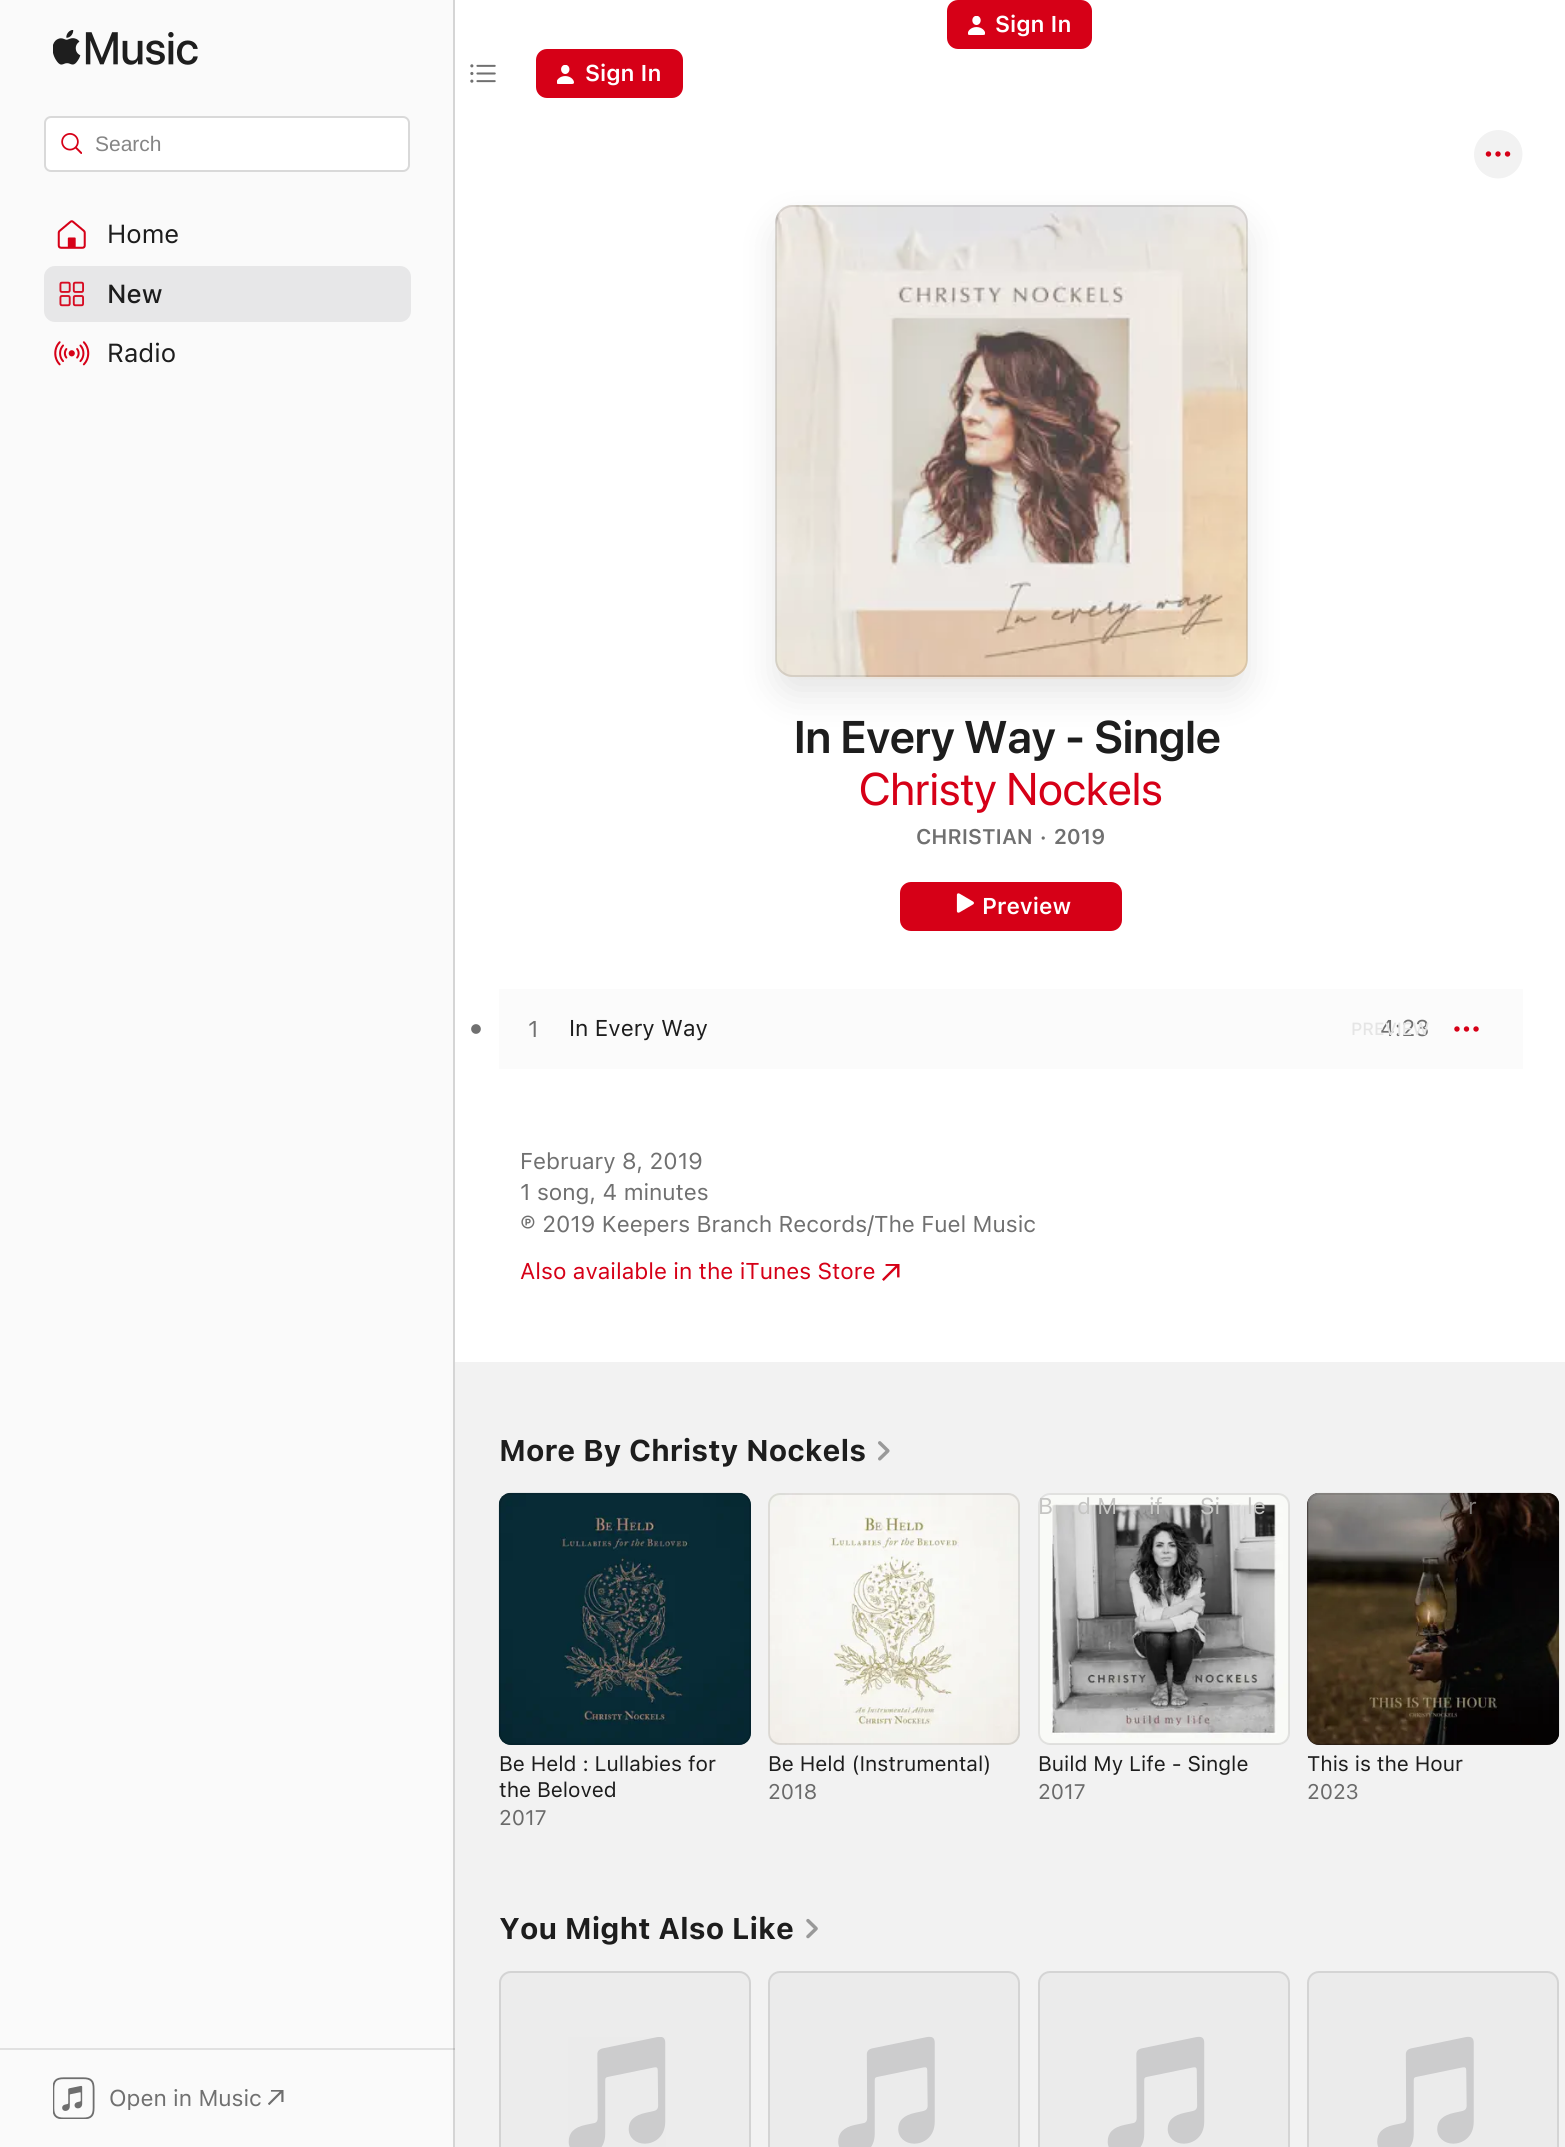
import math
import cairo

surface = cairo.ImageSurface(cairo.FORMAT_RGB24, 1565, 2147)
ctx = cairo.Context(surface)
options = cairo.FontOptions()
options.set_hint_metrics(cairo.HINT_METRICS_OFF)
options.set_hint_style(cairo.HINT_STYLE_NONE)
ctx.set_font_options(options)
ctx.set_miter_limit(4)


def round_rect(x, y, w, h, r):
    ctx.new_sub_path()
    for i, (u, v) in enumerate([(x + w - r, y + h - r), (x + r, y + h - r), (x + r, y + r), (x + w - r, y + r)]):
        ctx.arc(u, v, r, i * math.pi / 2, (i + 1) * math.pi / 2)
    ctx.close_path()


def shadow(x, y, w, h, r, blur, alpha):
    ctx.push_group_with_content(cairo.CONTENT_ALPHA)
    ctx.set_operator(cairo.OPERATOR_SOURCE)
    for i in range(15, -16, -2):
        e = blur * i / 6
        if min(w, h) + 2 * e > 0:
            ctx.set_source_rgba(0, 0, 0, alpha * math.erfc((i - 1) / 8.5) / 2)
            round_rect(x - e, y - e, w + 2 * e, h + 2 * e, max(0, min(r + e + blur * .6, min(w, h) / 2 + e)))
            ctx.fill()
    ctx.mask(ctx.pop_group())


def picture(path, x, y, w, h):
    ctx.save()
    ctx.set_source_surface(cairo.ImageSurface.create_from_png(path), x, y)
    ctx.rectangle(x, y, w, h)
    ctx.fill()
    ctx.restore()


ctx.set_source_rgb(1, 1, 1)
ctx.paint()
ctx.set_source_rgb(0.839, 0, 0.09)
round_rect(947, 0, 145, 49, 11)
ctx.fill()
picture("img1.png", 968, 16, 17, 19)
ctx.select_font_face("SF SemiBold")
ctx.set_font_size(22.75)
ctx.set_source_rgb(1, 1, 1)
ctx.move_to(995, 32)
ctx.show_text("Sign In")
picture("img2.png", 470, 64, 26, 19)
ctx.set_source_rgb(0.839, 0, 0.09)
round_rect(536, 49, 147, 49, 11)
ctx.fill()
picture("img3.png", 557, 65, 17, 19)
ctx.set_source_rgb(1, 1, 1)
ctx.move_to(585, 81)
ctx.show_text("Sign In")
ctx.set_source_rgb(0.98, 0.98, 0.98)
ctx.rectangle(0, 0, 453, 2147)
ctx.fill()
ctx.set_source_rgb(0.882, 0.882, 0.882)
ctx.rectangle(0, 2048, 455, 2)
ctx.fill()
ctx.set_source_rgb(0.835, 0.835, 0.835)
ctx.rectangle(453, 0, 2, 2147)
ctx.fill()
ctx.set_source_rgb(0.753, 0.753, 0.753)
ctx.rectangle(453, 2048, 2, 2)
ctx.fill()
picture("img4.png", 53, 30, 145, 35)
ctx.set_source_rgb(1, 1, 1)
round_rect(45, 117, 364, 54, 6)
ctx.fill_preserve()
ctx.set_source_rgb(0.851, 0.851, 0.851)
ctx.stroke()
picture("img5.png", 61, 133, 21, 21)
ctx.select_font_face("Liberation Sans")
ctx.set_font_size(21)
ctx.set_source_rgb(0.522, 0.522, 0.522)
ctx.move_to(95, 151)
ctx.show_text("Search")
picture("img6.png", 57, 220, 29, 29)
ctx.select_font_face("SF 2")
ctx.set_font_size(26)
ctx.set_source_rgb(0.114, 0.114, 0.114)
ctx.move_to(107, 243)
ctx.show_text("Home")
ctx.set_source_rgb(0.906, 0.906, 0.91)
round_rect(44, 266, 367, 56, 11)
ctx.fill()
picture("img7.png", 59, 281, 25, 26)
ctx.select_font_face("SF Medium")
ctx.set_source_rgb(0.114, 0.114, 0.114)
ctx.move_to(107, 303)
ctx.show_text("New")
picture("img8.png", 54, 341, 36, 25)
ctx.select_font_face("SF 2")
ctx.move_to(107, 362)
ctx.show_text("Radio")
picture("img9.png", 53, 2077, 42, 42)
ctx.set_font_size(22.75)
ctx.set_source_rgb(0.439, 0.439, 0.439)
ctx.move_to(109, 2106)
ctx.show_text("Open in Music")
picture("img10.png", 268, 2090, 16, 15)
picture("img11.png", 1474, 130, 49, 49)
ctx.set_source_rgb(0, 0, 0)
shadow(775, 222, 473, 473, 18, 17.5, 0.1)
picture("img12.png", 775, 205, 473, 472)
round_rect(776, 206, 471, 470, 17)
ctx.set_source_rgba(0, 0, 0, 0.1)
ctx.stroke()
picture("img13.png", 800, 677, 422, 2)
ctx.select_font_face("SF 2 SemiBold")
ctx.set_font_size(45.5)
ctx.set_source_rgb(0.114, 0.114, 0.114)
ctx.move_to(794, 753)
ctx.show_text("In Every Way - Single")
ctx.select_font_face("SF")
ctx.set_source_rgb(0.839, 0, 0.09)
ctx.move_to(859, 805)
ctx.show_text("Christy Nockels")
ctx.select_font_face("SF SemiBold")
ctx.set_font_size(21)
ctx.set_source_rgb(0.439, 0.439, 0.439)
ctx.move_to(916, 844)
ctx.show_text("CHRISTIAN · 2019")
ctx.set_source_rgb(0.839, 0, 0.09)
round_rect(900, 882, 222, 49, 11)
ctx.fill()
picture("img14.png", 956, 893, 18, 20)
ctx.set_font_size(22.75)
ctx.set_source_rgb(1, 1, 1)
ctx.move_to(982, 914)
ctx.show_text("Preview")
ctx.set_source_rgb(0.984, 0.984, 0.984)
ctx.rectangle(499, 989, 1024, 80)
ctx.fill()
picture("img15.png", 471, 1024, 10, 10)
ctx.select_font_face("SF 2")
ctx.set_source_rgb(0.439, 0.439, 0.439)
ctx.move_to(528, 1037)
ctx.show_text("1")
ctx.set_source_rgb(0.114, 0.114, 0.114)
ctx.move_to(569, 1036)
ctx.show_text("In Every Way")
ctx.set_source_rgb(0.439, 0.439, 0.439)
ctx.move_to(1380, 1036)
ctx.show_text("4:23")
ctx.select_font_face("SF Medium")
ctx.set_font_size(17.5)
ctx.set_source_rgb(0.898, 0.898, 0.898)
ctx.move_to(1351, 1035)
ctx.show_text("PREVIEW")
picture("img16.png", 1454, 1026, 25, 6)
ctx.select_font_face("SF 2")
ctx.set_font_size(22.75)
ctx.set_source_rgb(0.439, 0.439, 0.439)
ctx.move_to(520, 1169)
ctx.show_text("February 8, 2019")
ctx.move_to(520, 1200)
ctx.show_text("1 song, 4 minutes")
ctx.move_to(520, 1232)
ctx.show_text("℗ 2019 Keepers Branch Records/The Fuel Music")
ctx.set_source_rgb(0.839, 0, 0.09)
ctx.move_to(520, 1279)
ctx.show_text("Also available in the iTunes Store")
picture("img17.png", 882, 1264, 18, 17)
ctx.set_source_rgb(0.949, 0.949, 0.949)
ctx.rectangle(455, 1362, 1110, 785)
ctx.fill()
ctx.select_font_face("SF", cairo.FONT_SLANT_NORMAL, cairo.FONT_WEIGHT_BOLD)
ctx.set_font_size(29.75)
ctx.set_source_rgb(0.114, 0.114, 0.114)
ctx.move_to(499, 1461)
ctx.show_text("More By Christy Nockels")
picture("img18.png", 878, 1441, 12, 20)
ctx.set_source_rgb(0.027, 0.157, 0.204)
round_rect(499, 1493, 252, 252, 12)
ctx.fill()
picture("img19.png", 498, 1492, 253, 253)
round_rect(500, 1494, 250, 250, 11)
ctx.set_source_rgba(0, 0, 0, 0.1)
ctx.stroke()
ctx.select_font_face("SF 2")
ctx.set_font_size(21)
ctx.set_source_rgb(0.114, 0.114, 0.114)
ctx.move_to(499, 1771)
ctx.show_text("Be Held : Lullabies for")
ctx.move_to(499, 1797)
ctx.show_text("the Beloved")
ctx.set_source_rgb(0.416, 0.416, 0.416)
ctx.move_to(499, 1825)
ctx.show_text("2017")
ctx.set_source_rgb(0.961, 0.957, 0.937)
round_rect(768, 1493, 252, 252, 12)
ctx.fill()
picture("img20.png", 769, 1493, 251, 252)
round_rect(769, 1494, 250, 250, 11)
ctx.set_source_rgba(0, 0, 0, 0.1)
ctx.stroke()
ctx.set_source_rgb(0.114, 0.114, 0.114)
ctx.move_to(768, 1771)
ctx.show_text("Be Held (Instrumental)")
ctx.set_source_rgb(0.416, 0.416, 0.416)
ctx.move_to(768, 1799)
ctx.show_text("2018")
picture("img21.png", 1038, 1493, 252, 252)
round_rect(1039, 1494, 250, 250, 11)
ctx.set_source_rgba(0, 0, 0, 0.1)
ctx.stroke()
ctx.set_font_size(22.75)
ctx.set_source_rgb(0.773, 0.773, 0.765)
ctx.move_to(1038, 1514)
ctx.show_text("B")
ctx.move_to(1077, 1514)
ctx.show_text("d M")
ctx.move_to(1149, 1514)
ctx.show_text("if")
ctx.move_to(1200, 1514)
ctx.show_text("Si")
ctx.move_to(1247, 1514)
ctx.show_text("le")
ctx.set_font_size(21)
ctx.set_source_rgb(0.114, 0.114, 0.114)
ctx.move_to(1038, 1771)
ctx.show_text("Build My Life - Single")
ctx.set_source_rgb(0.416, 0.416, 0.416)
ctx.move_to(1038, 1799)
ctx.show_text("2017")
ctx.set_source_rgb(0.114, 0.075, 0.063)
round_rect(1307, 1493, 252, 252, 12)
ctx.fill()
picture("img22.png", 1307, 1492, 253, 253)
round_rect(1308, 1494, 250, 250, 11)
ctx.set_source_rgba(0, 0, 0, 0.1)
ctx.stroke()
ctx.set_font_size(22.75)
ctx.set_source_rgb(0.498, 0.482, 0.471)
ctx.move_to(1468, 1514)
ctx.show_text("r")
ctx.set_font_size(21)
ctx.set_source_rgb(0.114, 0.114, 0.114)
ctx.move_to(1307, 1771)
ctx.show_text("This is the Hour")
ctx.set_source_rgb(0.416, 0.416, 0.416)
ctx.move_to(1307, 1799)
ctx.show_text("2023")
ctx.select_font_face("SF", cairo.FONT_SLANT_NORMAL, cairo.FONT_WEIGHT_BOLD)
ctx.set_font_size(29.75)
ctx.set_source_rgb(0.114, 0.114, 0.114)
ctx.move_to(499, 1939)
ctx.show_text("You Might Also Like")
picture("img23.png", 806, 1918, 12, 21)
ctx.set_source_rgb(0.922, 0.922, 0.922)
ctx.new_path()
ctx.move_to(511, 1971)
ctx.line_to(739, 1971)
ctx.curve_to(745.5, 1971, 751, 1976.5, 751, 1983)
ctx.line_to(751, 2147)
ctx.line_to(499, 2147)
ctx.line_to(499, 1983)
ctx.curve_to(499, 1976.5, 504.5, 1971, 511, 1971)
ctx.close_path()
ctx.fill()
picture("img24.png", 568, 2037, 98, 110)
round_rect(500, 1972, 250, 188, 11)
ctx.set_source_rgb(0.827, 0.827, 0.827)
ctx.stroke()
picture("img25.png", 768, 1971, 252, 176)
round_rect(769, 1972, 250, 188, 11)
ctx.set_source_rgba(0, 0, 0, 0.1)
ctx.stroke()
picture("img26.png", 1038, 1971, 252, 176)
round_rect(1039, 1972, 250, 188, 11)
ctx.stroke()
picture("img27.png", 1307, 1971, 252, 176)
round_rect(1308, 1972, 250, 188, 11)
ctx.stroke()
surface.write_to_png("page.png")
